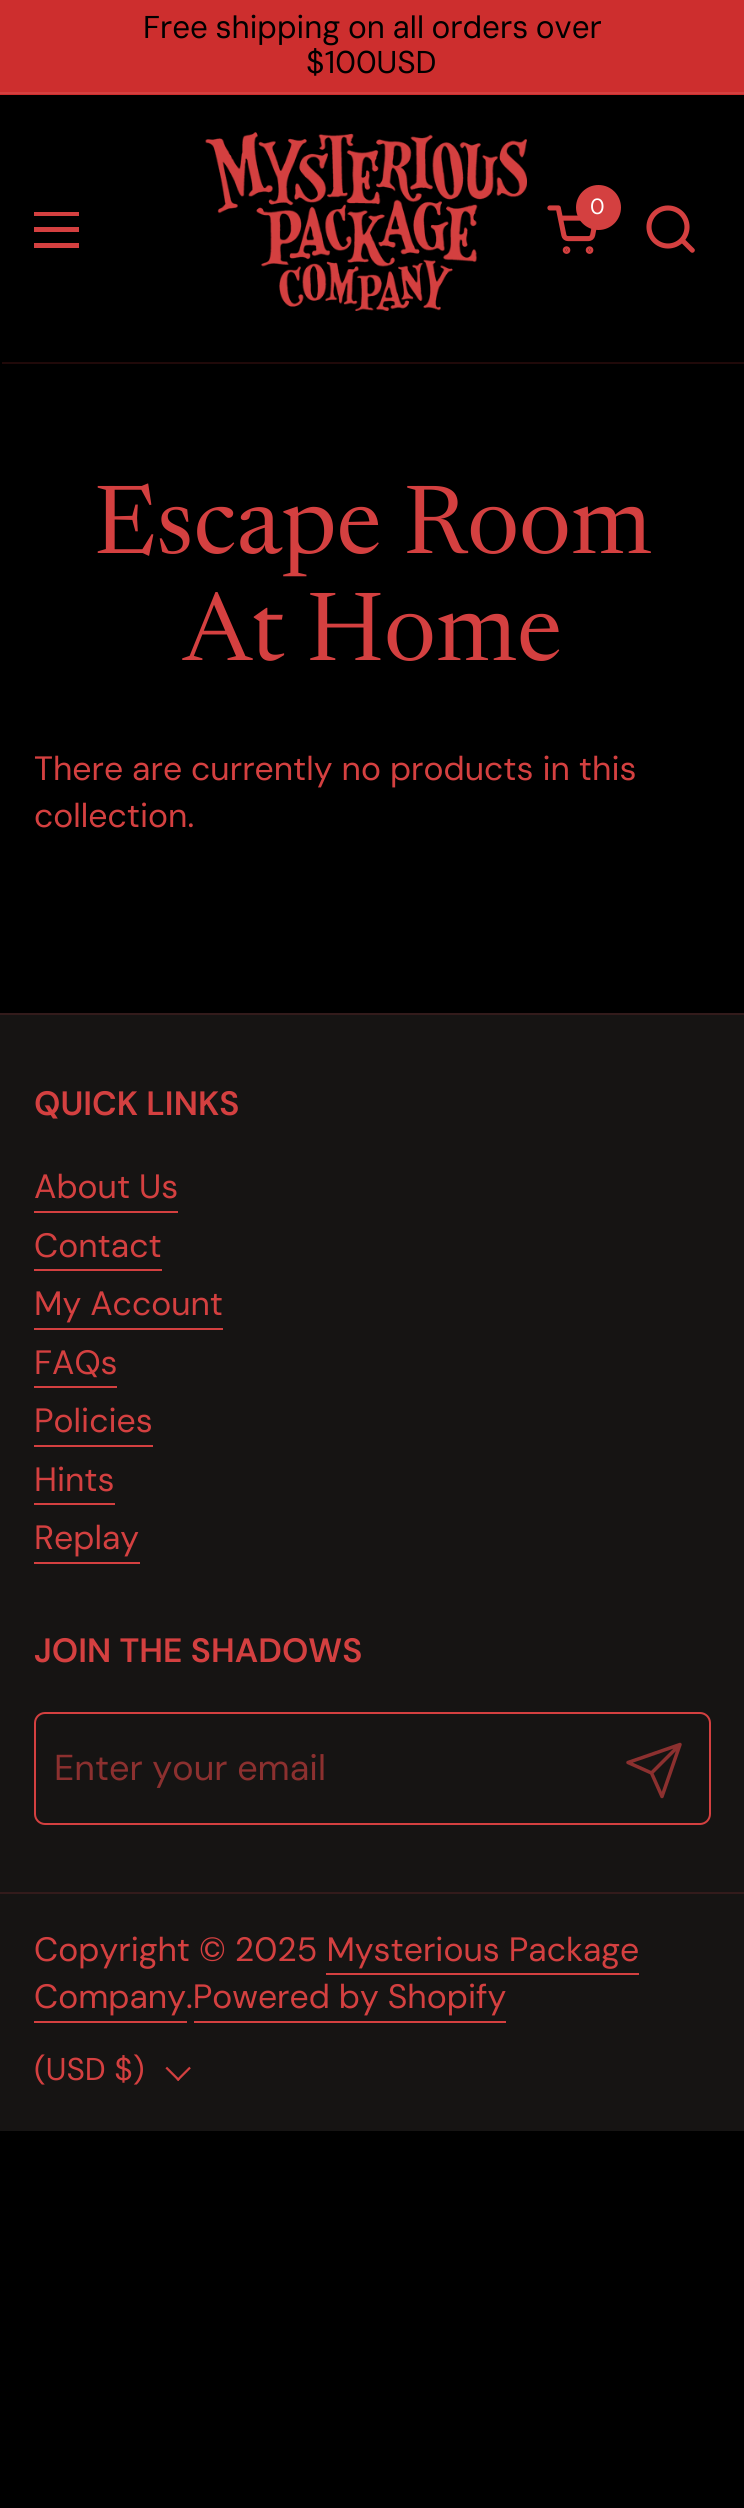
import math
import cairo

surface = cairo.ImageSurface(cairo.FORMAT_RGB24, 744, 2508)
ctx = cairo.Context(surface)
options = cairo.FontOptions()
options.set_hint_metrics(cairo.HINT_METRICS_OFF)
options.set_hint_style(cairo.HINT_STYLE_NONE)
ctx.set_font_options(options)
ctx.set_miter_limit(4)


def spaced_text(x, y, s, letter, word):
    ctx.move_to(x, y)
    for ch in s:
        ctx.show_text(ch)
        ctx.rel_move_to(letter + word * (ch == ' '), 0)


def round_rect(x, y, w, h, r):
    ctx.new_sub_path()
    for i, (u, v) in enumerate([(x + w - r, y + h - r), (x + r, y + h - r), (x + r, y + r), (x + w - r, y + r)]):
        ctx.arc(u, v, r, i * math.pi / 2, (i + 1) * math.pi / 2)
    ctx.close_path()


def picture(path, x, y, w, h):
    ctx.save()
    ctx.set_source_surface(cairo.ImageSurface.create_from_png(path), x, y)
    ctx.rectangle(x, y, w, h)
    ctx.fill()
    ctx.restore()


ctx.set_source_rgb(0, 0, 0)
ctx.paint()
ctx.set_source_rgb(0.804, 0.18, 0.18)
ctx.rectangle(0, 0, 744, 95)
ctx.fill()
ctx.set_source_rgb(0.831, 0.251, 0.251)
ctx.rectangle(0, 92, 744, 2)
ctx.fill()
ctx.select_font_face("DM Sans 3")
ctx.set_font_size(31.5)
ctx.set_source_rgb(0, 0, 0)
spaced_text(143, 38, "Free shipping on all orders over", 0, -1)
ctx.move_to(306, 73)
ctx.show_text("$100USD")
ctx.set_source_rgb(0.831, 0.251, 0.251)
ctx.rectangle(34, 212, 45, 4)
ctx.fill()
ctx.rectangle(34, 227, 45, 5)
ctx.fill()
ctx.rectangle(34, 243, 45, 5)
ctx.fill()
picture("img1.png", 205, 132, 322, 179)
ctx.arc(598.5, 207.5, 22.5, 0, 2 * math.pi)
ctx.fill()
ctx.select_font_face("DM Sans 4")
ctx.set_font_size(22)
ctx.set_source_rgb(1, 1, 1)
ctx.move_to(590, 214)
ctx.show_text("0")
picture("img2.png", 547, 205, 50, 49)
ctx.arc(668, 227, 19, 0, 2 * math.pi)
ctx.set_source_rgb(0.831, 0.251, 0.251)
ctx.set_line_width(5.1)
ctx.stroke()
ctx.new_path()
ctx.move_to(685, 239.5)
ctx.line_to(683, 237.5)
ctx.line_to(679.5, 241)
ctx.line_to(681.5, 243)
ctx.close_path()
ctx.move_to(690.5, 252)
ctx.curve_to(693, 254.5, 696.5, 250.5, 694, 248.5)
ctx.close_path()
ctx.move_to(681.5, 243)
ctx.line_to(690.5, 252)
ctx.line_to(694, 248.5)
ctx.line_to(685, 239.5)
ctx.close_path()
ctx.fill()
ctx.set_source_rgb(0.125, 0.039, 0.039)
ctx.rectangle(2, 362, 742, 2)
ctx.fill()
ctx.select_font_face("Newsreader")
ctx.set_font_size(97)
ctx.set_source_rgb(0.831, 0.251, 0.251)
ctx.move_to(94, 553)
ctx.show_text("Escape Room")
ctx.move_to(183, 660)
ctx.show_text("At Home")
ctx.select_font_face("DM Sans")
ctx.set_font_size(33.75)
ctx.move_to(34, 780)
ctx.show_text("There are currently no products in this")
ctx.move_to(34, 827)
ctx.show_text("collection.")
ctx.set_source_rgb(0.086, 0.082, 0.078)
ctx.rectangle(0, 1015, 744, 1116)
ctx.fill()
ctx.set_source_rgb(0.2, 0.106, 0.106)
ctx.rectangle(0, 1013, 744, 2)
ctx.fill()
ctx.select_font_face("DM Sans SemiBold")
ctx.set_source_rgb(0.831, 0.251, 0.251)
ctx.move_to(34, 1115)
ctx.show_text("QUICK LINKS")
ctx.select_font_face("DM Sans")
ctx.move_to(34, 1198)
ctx.show_text("About Us")
ctx.rectangle(34, 1211, 144, 2)
ctx.fill()
ctx.move_to(34, 1257)
ctx.show_text("Contact")
ctx.rectangle(34, 1269, 128, 2)
ctx.fill()
ctx.move_to(34, 1315)
ctx.show_text("My Account")
ctx.rectangle(34, 1328, 189, 2)
ctx.fill()
ctx.move_to(34, 1374)
ctx.show_text("FAQs")
ctx.rectangle(34, 1386, 83, 2)
ctx.fill()
ctx.move_to(34, 1432)
ctx.show_text("Policies")
ctx.rectangle(34, 1445, 119, 2)
ctx.fill()
ctx.move_to(34, 1491)
ctx.show_text("Hints")
ctx.rectangle(34, 1503, 81, 2)
ctx.fill()
ctx.move_to(34, 1549)
ctx.show_text("Replay")
ctx.rectangle(34, 1562, 106, 2)
ctx.fill()
ctx.select_font_face("DM Sans SemiBold")
ctx.move_to(34, 1662)
ctx.show_text("JOIN THE SHADOWS")
round_rect(35, 1713, 675, 111, 10)
ctx.set_line_width(2)
ctx.stroke()
ctx.select_font_face("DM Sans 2")
ctx.set_font_size(36)
ctx.set_source_rgb(0.549, 0.188, 0.184)
ctx.move_to(54, 1780)
ctx.show_text("Enter your email")
ctx.new_path()
ctx.move_to(680, 1744.5)
ctx.line_to(651.5, 1773)
ctx.move_to(680, 1744.5)
ctx.line_to(662, 1796.5)
ctx.line_to(651.5, 1773)
ctx.line_to(628, 1762.5)
ctx.close_path()
ctx.set_line_width(3.5)
ctx.set_line_cap(cairo.LINE_CAP_ROUND)
ctx.set_line_join(cairo.LINE_JOIN_ROUND)
ctx.stroke()
ctx.set_source_rgb(0.2, 0.106, 0.106)
ctx.rectangle(0, 1892, 744, 2)
ctx.fill()
ctx.select_font_face("DM Sans")
ctx.set_font_size(33.75)
ctx.set_source_rgb(0.831, 0.251, 0.251)
ctx.move_to(34, 1961)
ctx.show_text("Copyright © 2025 Mysterious Package")
ctx.move_to(34, 2008)
ctx.show_text("Company.Powered by Shopify")
ctx.rectangle(326, 1973, 313, 2)
ctx.fill()
ctx.rectangle(34, 2021, 153, 2)
ctx.fill()
ctx.rectangle(194, 2021, 312, 2)
ctx.fill()
ctx.select_font_face("DM Sans 3")
ctx.set_font_size(31.5)
ctx.move_to(34, 2080)
ctx.show_text("(USD $)")
picture("img3.png", 165, 2066, 26, 15)
surface.write_to_png("page.png")
